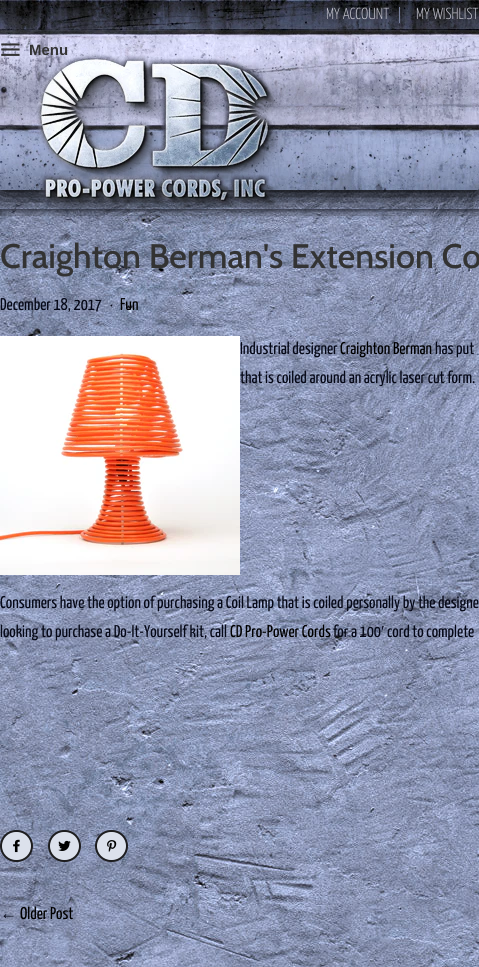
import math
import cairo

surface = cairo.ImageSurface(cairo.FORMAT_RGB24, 479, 967)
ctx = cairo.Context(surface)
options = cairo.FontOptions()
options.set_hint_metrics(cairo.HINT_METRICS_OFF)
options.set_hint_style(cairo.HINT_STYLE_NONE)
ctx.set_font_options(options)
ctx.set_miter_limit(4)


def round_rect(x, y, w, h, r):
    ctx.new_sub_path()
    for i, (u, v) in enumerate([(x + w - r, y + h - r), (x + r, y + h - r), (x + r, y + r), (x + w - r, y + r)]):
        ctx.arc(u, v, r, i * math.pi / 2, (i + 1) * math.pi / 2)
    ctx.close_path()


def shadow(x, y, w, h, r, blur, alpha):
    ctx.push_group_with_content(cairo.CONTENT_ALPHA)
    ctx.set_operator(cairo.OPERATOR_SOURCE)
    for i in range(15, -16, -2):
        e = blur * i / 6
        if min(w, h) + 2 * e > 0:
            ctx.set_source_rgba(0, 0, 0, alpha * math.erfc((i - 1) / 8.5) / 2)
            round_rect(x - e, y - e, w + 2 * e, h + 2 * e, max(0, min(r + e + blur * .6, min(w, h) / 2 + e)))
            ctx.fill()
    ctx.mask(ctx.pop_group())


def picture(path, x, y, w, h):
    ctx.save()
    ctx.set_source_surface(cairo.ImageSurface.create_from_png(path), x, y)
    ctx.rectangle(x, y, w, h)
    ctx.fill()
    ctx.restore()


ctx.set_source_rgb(1, 1, 1)
ctx.paint()
picture("img1.png", 0, 190, 479, 777)
ctx.set_source_rgb(0, 0, 0)
shadow(0, 0, 479, 190, 0, 15, 1)
shadow(0, 0, 479, 190, 0, 15, 1)
picture("img2.png", 0, 0, 479, 190)
ctx.set_source_rgb(0.475, 0.51, 0.62)
ctx.rectangle(399, 7, 1, 16)
ctx.fill()
ctx.select_font_face("Yanone Kaffeesatz Light")
ctx.set_font_size(16)
ctx.set_source_rgb(0.765, 0.765, 0.804)
ctx.move_to(326, 19)
ctx.show_text("MY ACCOUNT")
ctx.move_to(416, 19)
ctx.show_text("MY WISHLIST")
picture("img3.png", 1, 43, 19, 13)
ctx.select_font_face("Liberation Sans", cairo.FONT_SLANT_NORMAL, cairo.FONT_WEIGHT_BOLD)
ctx.set_font_size(15)
ctx.set_source_rgb(0.2, 0.2, 0.2)
ctx.move_to(29, 55)
ctx.show_text("Menu")
picture("img4.png", 0, 209, 479, 7)
picture("img5.png", 36, 53, 248, 162)
ctx.select_font_face("Cabin Medium")
ctx.set_font_size(34)
ctx.move_to(0, 268)
ctx.show_text("Craighton Berman's Extension Co")
ctx.select_font_face("Yanone Kaffeesatz")
ctx.set_font_size(17)
ctx.set_source_rgb(0.027, 0.039, 0.094)
ctx.move_to(0, 310)
ctx.show_text("December 18, 2017")
ctx.set_font_size(12)
ctx.move_to(110, 309)
ctx.show_text("•")
ctx.set_font_size(17)
ctx.set_source_rgb(0, 0, 0)
ctx.move_to(120, 310)
ctx.show_text("Fun")
picture("img6.png", 0, 336, 240, 239)
ctx.set_source_rgb(0.027, 0.039, 0.094)
ctx.move_to(240, 354)
ctx.show_text("Industrial designer")
ctx.set_source_rgb(0, 0, 0)
ctx.move_to(340, 354)
ctx.show_text("Craighton Berman")
ctx.set_source_rgb(0.027, 0.039, 0.094)
ctx.move_to(435, 354)
ctx.show_text("has put")
ctx.move_to(240, 383)
ctx.show_text("that is coiled around an acrylic laser cut form.")
ctx.move_to(0, 608)
ctx.show_text("Consumers have the option of purchasing a Coil Lamp that is coiled personally by the designe")
ctx.move_to(0, 637)
ctx.show_text("looking to purchase a Do-It-Yourself kit, call")
ctx.set_source_rgb(0, 0, 0)
ctx.move_to(230, 637)
ctx.show_text("CD Pro-Power Cords")
ctx.set_source_rgb(0.027, 0.039, 0.094)
ctx.move_to(333, 637)
ctx.show_text("for a 100")
ctx.select_font_face("Liberation Serif")
ctx.move_to(381, 637)
ctx.show_text("′")
ctx.select_font_face("Yanone Kaffeesatz")
ctx.move_to(387, 637)
ctx.show_text("cord to complete")
ctx.set_source_rgb(0.863, 0.882, 0.925)
round_rect(1, 831, 31, 30, 15)
ctx.fill_preserve()
ctx.set_source_rgb(0.114, 0.114, 0.122)
ctx.stroke()
picture("img7.png", 13, 839, 7, 14)
ctx.set_source_rgb(0.863, 0.882, 0.925)
round_rect(49, 831, 31, 30, 15)
ctx.fill_preserve()
ctx.set_source_rgb(0.114, 0.114, 0.122)
ctx.stroke()
picture("img8.png", 58, 840, 13, 11)
ctx.set_source_rgb(0.863, 0.882, 0.925)
round_rect(96, 831, 31, 30, 15)
ctx.fill_preserve()
ctx.set_source_rgb(0.114, 0.114, 0.122)
ctx.stroke()
picture("img9.png", 107, 840, 10, 12)
ctx.select_font_face("Liberation Serif")
ctx.set_source_rgb(0.027, 0.039, 0.094)
ctx.move_to(0, 919)
ctx.show_text("←")
ctx.select_font_face("Yanone Kaffeesatz")
ctx.set_source_rgb(0, 0, 0)
ctx.move_to(20, 919)
ctx.show_text("Older Post")
surface.write_to_png("page.png")
